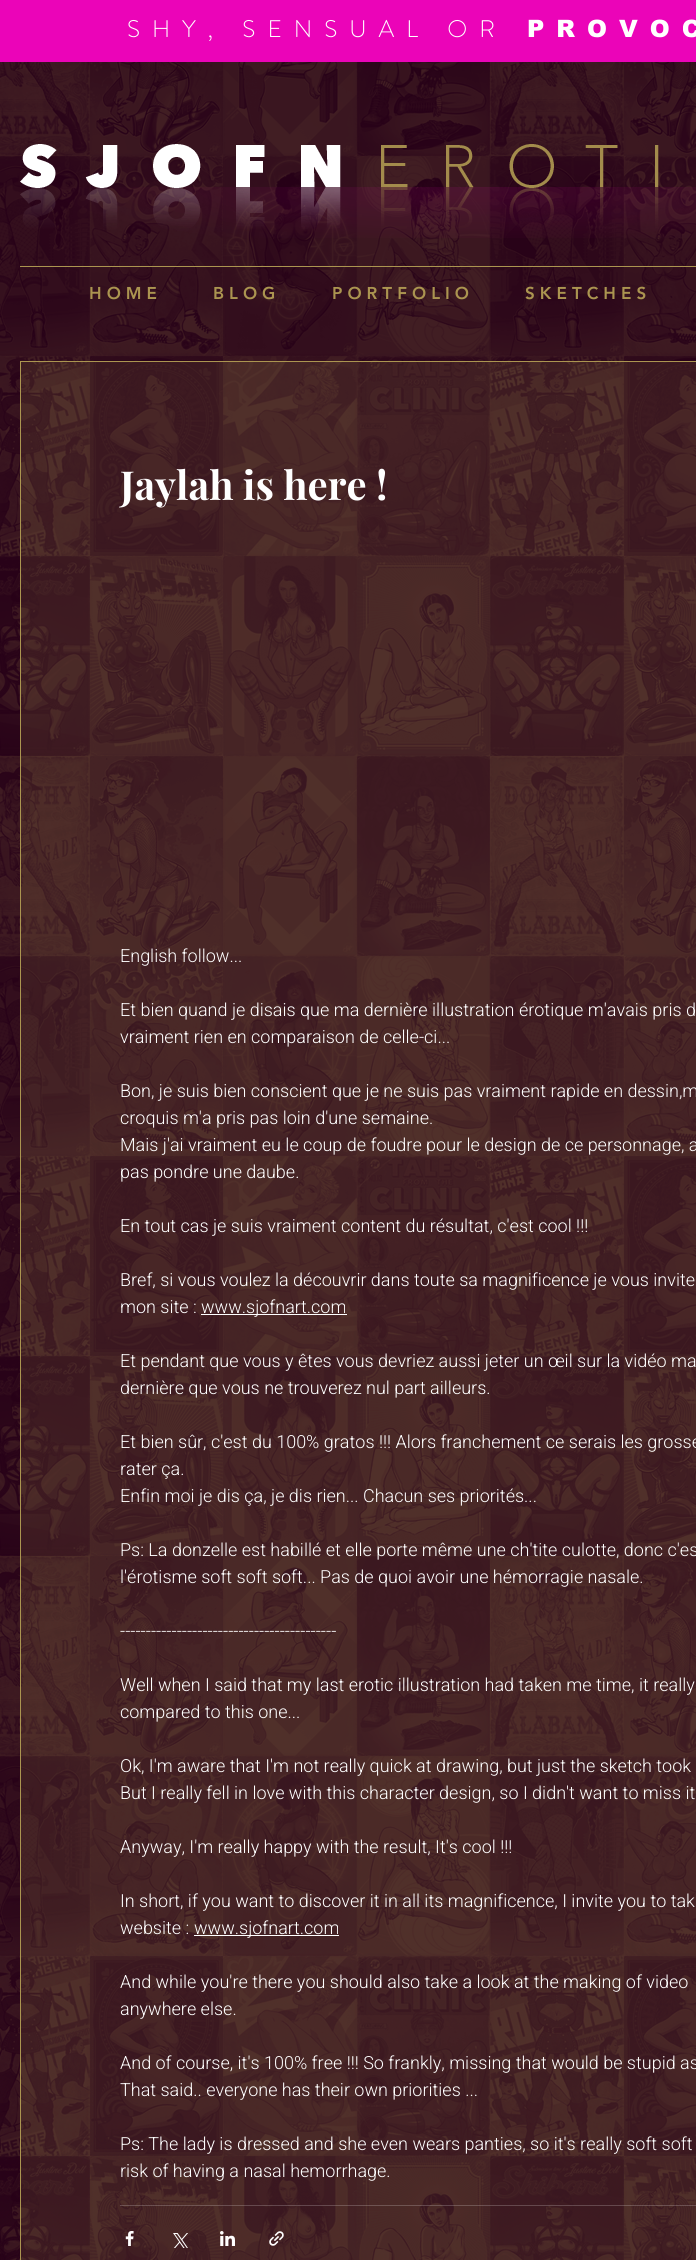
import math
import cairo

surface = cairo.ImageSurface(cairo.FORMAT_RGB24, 696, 2260)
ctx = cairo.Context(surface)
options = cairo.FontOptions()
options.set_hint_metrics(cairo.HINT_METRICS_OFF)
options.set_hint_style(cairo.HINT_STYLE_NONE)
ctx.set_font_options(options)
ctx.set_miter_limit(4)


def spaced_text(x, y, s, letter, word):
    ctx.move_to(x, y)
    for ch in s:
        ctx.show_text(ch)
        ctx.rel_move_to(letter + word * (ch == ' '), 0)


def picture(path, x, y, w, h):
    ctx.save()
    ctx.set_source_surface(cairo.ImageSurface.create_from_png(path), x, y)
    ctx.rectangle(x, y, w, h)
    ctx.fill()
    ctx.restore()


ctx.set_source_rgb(1, 1, 1)
ctx.paint()
ctx.set_source_rgb(0.918, 0.016, 0.722)
ctx.rectangle(0, 0, 696, 62)
ctx.fill()
ctx.select_font_face("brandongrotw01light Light")
ctx.set_font_size(24)
ctx.set_source_rgb(1, 1, 1)
spaced_text(127, 37, "SHY, SENSUAL OR", 12, 0)
ctx.select_font_face("arial Black")
spaced_text(527, 37, "PROVOC", 12, 0)
picture("img6.png", 0, 62, 696, 2198)
picture("img1.png", 20, 144, 676, 94)
ctx.set_source_rgb(0.671, 0.584, 0.314)
ctx.rectangle(20, 266, 676, 1)
ctx.fill()
ctx.select_font_face("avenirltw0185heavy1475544 Black")
ctx.set_font_size(17)
ctx.move_to(89, 299)
ctx.show_text("H O M E")
ctx.move_to(213, 299)
ctx.show_text("B L O G")
ctx.move_to(332, 299)
ctx.show_text("P O R T F O L I O")
ctx.move_to(525, 299)
ctx.show_text("S K E T C H E S")
ctx.set_source_rgba(0.671, 0.584, 0.314, 0.15)
ctx.rectangle(20.5, 361.5, 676, 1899)
ctx.fill_preserve()
ctx.set_source_rgb(0.671, 0.584, 0.314)
ctx.set_line_width(1)
ctx.stroke()
ctx.select_font_face("Playfair Display", cairo.FONT_SLANT_NORMAL, cairo.FONT_WEIGHT_BOLD)
ctx.set_font_size(40)
ctx.set_source_rgb(1, 1, 1)
ctx.move_to(120, 500)
ctx.show_text("Jaylah is here !")
ctx.select_font_face("Heebo Light")
ctx.set_font_size(18)
ctx.move_to(120, 962)
ctx.show_text("English follow...")
ctx.move_to(120, 1016)
ctx.show_text("Et bien quand je disais que ma dernière illustration érotique m'avais pris d")
ctx.move_to(120, 1043)
ctx.show_text("vraiment rien en comparaison de celle-ci...")
ctx.move_to(120, 1097)
ctx.show_text("Bon, je suis bien conscient que je ne suis pas vraiment rapide en dessin,m")
ctx.move_to(120, 1124)
ctx.show_text("croquis m'a pris pas loin d'une semaine.")
ctx.move_to(120, 1151)
ctx.show_text("Mais j'ai vraiment eu le coup de foudre pour le design de ce personnage, a")
ctx.move_to(120, 1178)
ctx.show_text("pas pondre une daube.")
ctx.move_to(120, 1232)
ctx.show_text("En tout cas je suis vraiment content du résultat, c'est cool !!!")
ctx.move_to(120, 1286)
ctx.show_text("Bref, si vous voulez la découvrir dans toute sa magnificence je vous invite")
ctx.move_to(120, 1313)
ctx.show_text("mon site :")
ctx.rectangle(201, 1314, 146, 1)
ctx.fill()
ctx.move_to(201, 1313)
ctx.show_text("www.sjofnart.com")
ctx.move_to(120, 1367)
ctx.show_text("Et pendant que vous y êtes vous devriez aussi jeter un œil sur la vidéo ma")
ctx.move_to(120, 1394)
ctx.show_text("dernière que vous ne trouverez nul part ailleurs.")
ctx.move_to(120, 1448)
ctx.show_text("Et bien sûr, c'est du 100% gratos !!! Alors franchement ce serais les grosse")
ctx.move_to(120, 1475)
ctx.show_text("rater ça.")
ctx.move_to(120, 1502)
ctx.show_text("Enfin moi je dis ça, je dis rien... Chacun ses priorités...")
ctx.move_to(120, 1556)
ctx.show_text("Ps: La donzelle est habillé et elle porte même une ch'tite culotte, donc c'es")
ctx.move_to(120, 1583)
ctx.show_text("l'érotisme soft soft soft... Pas de quoi avoir une hémorragie nasale.")
ctx.move_to(120, 1637)
ctx.show_text("------------------------------------------")
ctx.move_to(120, 1691)
ctx.show_text("Well when I said that my last erotic illustration had taken me time, it really")
ctx.move_to(120, 1718)
ctx.show_text("compared to this one...")
ctx.move_to(120, 1772)
ctx.show_text("Ok, I'm aware that I'm not really quick at drawing, but just the sketch took")
ctx.move_to(120, 1799)
ctx.show_text("But I really fell in love with this character design, so I didn't want to miss it")
ctx.move_to(120, 1853)
ctx.show_text("Anyway, I'm really happy with the result, It's cool !!!")
ctx.move_to(120, 1907)
ctx.show_text("In short, if you want to discover it in all its magnificence, I invite you to tak")
ctx.move_to(120, 1934)
ctx.show_text("website :")
ctx.rectangle(194, 1935, 145, 1)
ctx.fill()
ctx.move_to(194, 1934)
ctx.show_text("www.sjofnart.com")
ctx.move_to(120, 1988)
ctx.show_text("And while you're there you should also take a look at the making of video")
ctx.move_to(120, 2015)
ctx.show_text("anywhere else.")
ctx.move_to(120, 2069)
ctx.show_text("And of course, it's 100% free !!! So frankly, missing that would be stupid as")
ctx.move_to(120, 2096)
ctx.show_text("That said.. everyone has their own priorities ...")
ctx.move_to(120, 2150)
ctx.show_text("Ps: The lady is dressed and she even wears panties, so it's really soft soft")
ctx.move_to(120, 2177)
ctx.show_text("risk of having a nasal hemorrhage.")
ctx.set_source_rgba(1, 1, 1, 0.2)
ctx.rectangle(120, 2205, 576, 1)
ctx.fill()
picture("img2.png", 125, 2231, 9, 15)
picture("img3.png", 173, 2233, 15, 15)
picture("img4.png", 220, 2231, 15, 15)
picture("img5.png", 269, 2231, 15, 15)
surface.write_to_png("page.png")
